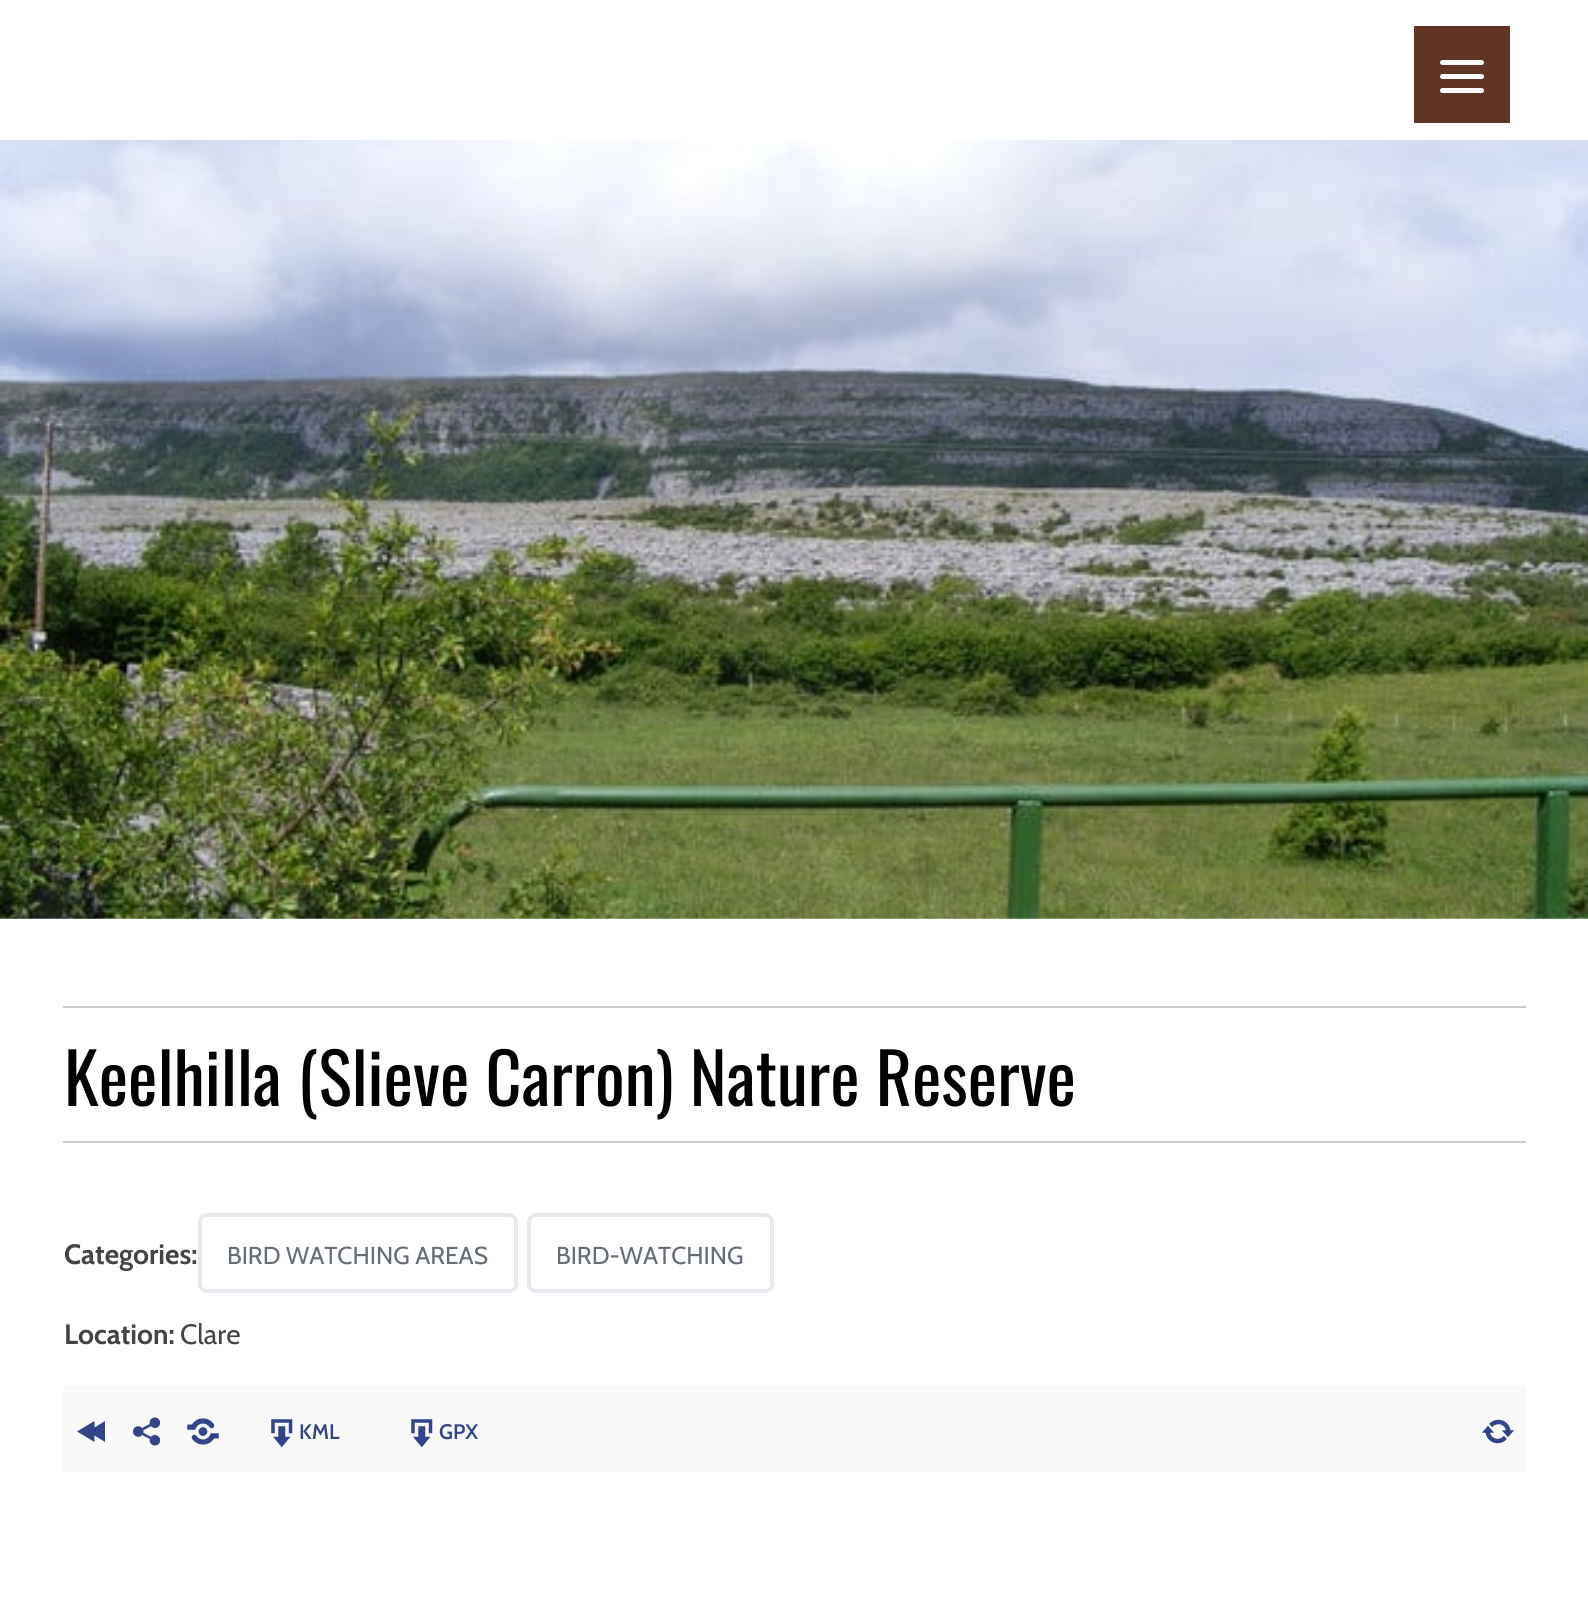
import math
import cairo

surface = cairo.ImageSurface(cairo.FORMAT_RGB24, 1588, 1606)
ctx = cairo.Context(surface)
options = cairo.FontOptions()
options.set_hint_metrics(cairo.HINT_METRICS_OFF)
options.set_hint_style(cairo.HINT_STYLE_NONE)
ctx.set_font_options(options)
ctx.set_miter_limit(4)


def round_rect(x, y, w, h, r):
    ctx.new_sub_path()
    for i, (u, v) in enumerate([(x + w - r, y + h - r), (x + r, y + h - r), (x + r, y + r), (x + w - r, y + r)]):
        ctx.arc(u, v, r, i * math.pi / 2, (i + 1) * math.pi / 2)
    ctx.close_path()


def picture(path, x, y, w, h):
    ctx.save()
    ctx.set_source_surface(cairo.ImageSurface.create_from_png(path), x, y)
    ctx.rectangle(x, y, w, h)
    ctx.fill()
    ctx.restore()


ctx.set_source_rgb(1, 1, 1)
ctx.paint()
ctx.set_source_rgb(0.376, 0.208, 0.145)
ctx.rectangle(1414, 26, 96, 97)
ctx.fill()
ctx.set_source_rgb(1, 1, 1)
round_rect(1440, 74, 44, 5, 2.5)
ctx.fill()
round_rect(1440, 60, 44, 5, 2.5)
ctx.fill()
round_rect(1440, 88, 44, 5, 2.5)
ctx.fill()
picture("img1.png", 0, 140, 1588, 779)
ctx.set_source_rgb(0.8, 0.8, 0.8)
ctx.rectangle(63, 1006, 1463, 2)
ctx.fill()
ctx.rectangle(63, 1141, 1463, 2)
ctx.fill()
ctx.select_font_face("Oswald")
ctx.set_font_size(70)
ctx.set_source_rgb(0, 0, 0)
ctx.move_to(64, 1106)
ctx.show_text("Keelhilla (Slieve Carron) Nature Reserve")
ctx.select_font_face("Cabin", cairo.FONT_SLANT_NORMAL, cairo.FONT_WEIGHT_BOLD)
ctx.set_font_size(28)
ctx.set_source_rgb(0.267, 0.267, 0.267)
ctx.move_to(64, 1264)
ctx.show_text("Categories:")
round_rect(200, 1215, 316, 76, 7)
ctx.set_source_rgb(0.902, 0.914, 0.933)
ctx.set_line_width(4)
ctx.stroke()
ctx.select_font_face("Cabin")
ctx.set_font_size(24.5)
ctx.set_source_rgb(0.396, 0.427, 0.471)
ctx.move_to(227, 1264)
ctx.show_text("BIRD WATCHING AREAS")
round_rect(529, 1215, 243, 76, 7)
ctx.set_source_rgb(0.902, 0.914, 0.933)
ctx.stroke()
ctx.set_source_rgb(0.396, 0.427, 0.471)
ctx.move_to(556, 1264)
ctx.show_text("BIRD-WATCHING")
ctx.select_font_face("Cabin", cairo.FONT_SLANT_NORMAL, cairo.FONT_WEIGHT_BOLD)
ctx.set_font_size(28)
ctx.set_source_rgb(0.267, 0.267, 0.267)
ctx.move_to(64, 1344)
ctx.show_text("Location:")
ctx.select_font_face("Cabin")
ctx.move_to(180, 1344)
ctx.show_text("Clare")
ctx.set_source_rgb(0.976, 0.976, 0.976)
ctx.rectangle(63, 1386, 1463, 86)
ctx.fill()
ctx.set_source_rgb(0.2, 0.267, 0.533)
ctx.new_path()
ctx.move_to(77, 1431.5)
ctx.line_to(94.5, 1421)
ctx.line_to(94.5, 1427.5)
ctx.line_to(105, 1421)
ctx.line_to(105, 1442)
ctx.line_to(94.5, 1435.5)
ctx.line_to(94.5, 1442)
ctx.close_path()
ctx.fill()
picture("img2.png", 133, 1417, 28, 29)
picture("img3.png", 187, 1418, 32, 27)
picture("img4.png", 271, 1419, 22, 29)
ctx.select_font_face("Cabin SemiBold")
ctx.set_font_size(21)
ctx.move_to(299, 1439)
ctx.show_text("KML")
picture("img4.png", 411, 1419, 22, 29)
ctx.move_to(439, 1439)
ctx.show_text("GPX")
picture("img5.png", 1482, 1419, 32, 25)
surface.write_to_png("page.png")
